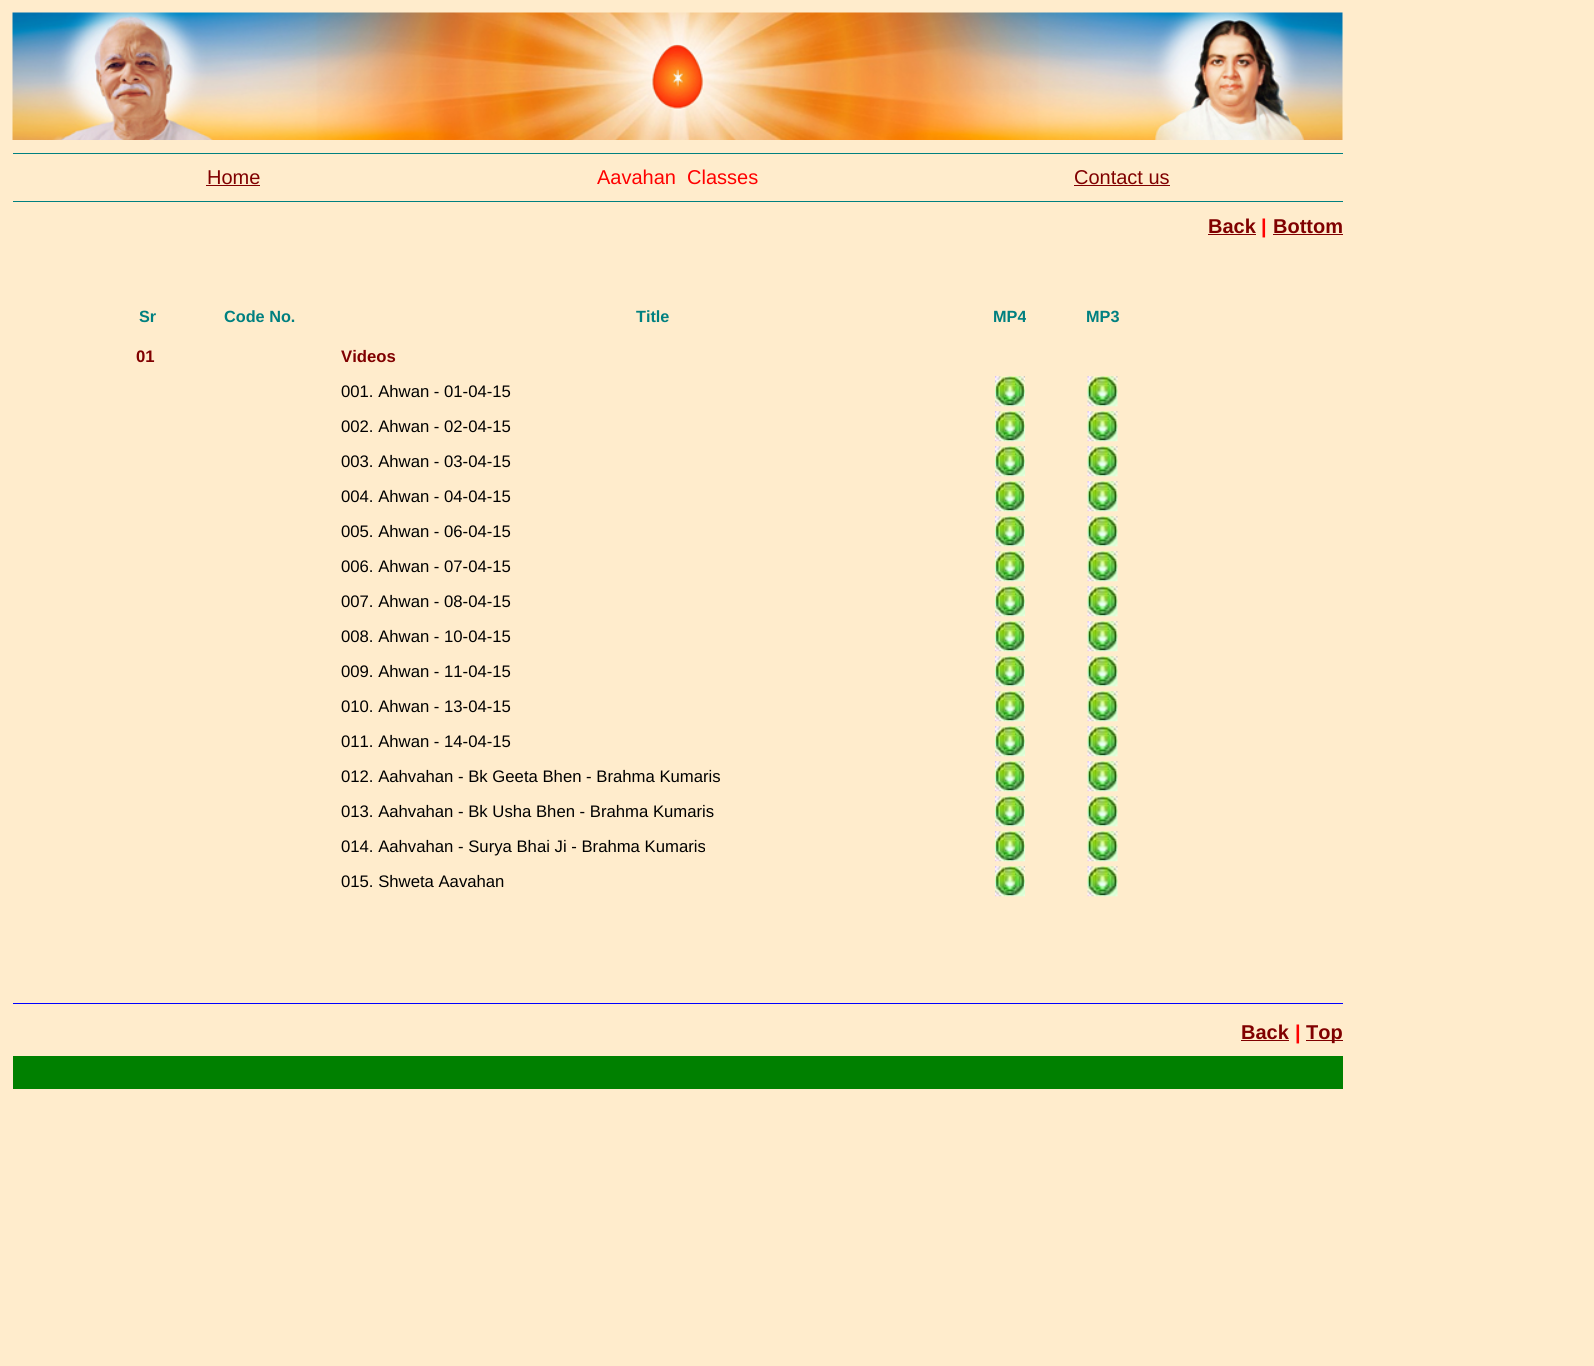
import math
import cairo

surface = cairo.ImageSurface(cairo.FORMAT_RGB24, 1594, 1366)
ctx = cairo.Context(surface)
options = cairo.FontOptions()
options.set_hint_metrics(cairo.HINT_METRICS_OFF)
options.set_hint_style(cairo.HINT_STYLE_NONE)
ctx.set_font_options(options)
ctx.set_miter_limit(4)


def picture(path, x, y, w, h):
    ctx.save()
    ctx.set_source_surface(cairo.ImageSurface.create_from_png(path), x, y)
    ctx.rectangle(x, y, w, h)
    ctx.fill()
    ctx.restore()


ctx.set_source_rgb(1, 0.922, 0.8)
ctx.paint()
picture("img1.png", 12, 12, 1331, 128)
ctx.set_source_rgb(0, 0.502, 0.502)
ctx.rectangle(13, 153, 1330, 1)
ctx.fill()
ctx.select_font_face("Liberation Sans")
ctx.set_font_size(20)
ctx.set_source_rgb(0.502, 0, 0)
ctx.move_to(207, 184)
ctx.show_text("Home")
ctx.rectangle(206, 185, 54, 1)
ctx.fill()
ctx.set_source_rgb(1, 0, 0)
ctx.move_to(597, 184)
ctx.show_text("Aavahan  Classes")
ctx.set_source_rgb(0.502, 0, 0)
ctx.move_to(1074, 184)
ctx.show_text("Contact us")
ctx.rectangle(1074, 185, 96, 1)
ctx.fill()
ctx.set_source_rgb(0, 0.502, 0.502)
ctx.rectangle(13, 201, 1330, 1)
ctx.fill()
ctx.select_font_face("Liberation Sans", cairo.FONT_SLANT_NORMAL, cairo.FONT_WEIGHT_BOLD)
ctx.set_source_rgb(0.502, 0, 0)
ctx.move_to(1208, 233)
ctx.show_text("Back")
ctx.rectangle(1208, 234, 48, 1)
ctx.fill()
ctx.set_source_rgb(1, 0, 0)
ctx.move_to(1261, 233)
ctx.show_text("|")
ctx.set_source_rgb(0.502, 0, 0)
ctx.move_to(1273, 233)
ctx.show_text("Bottom")
ctx.rectangle(1273, 234, 70, 1)
ctx.fill()
ctx.set_font_size(16.25)
ctx.set_source_rgb(0, 0.502, 0.502)
ctx.move_to(139, 322)
ctx.show_text("Sr")
ctx.move_to(224, 322)
ctx.show_text("Code No.")
ctx.move_to(636, 322)
ctx.show_text("Title")
ctx.move_to(993, 322)
ctx.show_text("MP4")
ctx.move_to(1086, 322)
ctx.show_text("MP3")
ctx.set_font_size(16.7)
ctx.set_source_rgb(0.502, 0, 0)
ctx.move_to(136, 362)
ctx.show_text("01")
ctx.move_to(341, 362)
ctx.show_text("Videos")
ctx.select_font_face("Liberation Sans")
ctx.set_source_rgb(0, 0, 0)
ctx.move_to(341, 397)
ctx.show_text("001. Ahwan - 01-04-15")
picture("img2.png", 995, 376, 30, 31)
picture("img3.png", 1087, 376, 31, 31)
ctx.move_to(341, 432)
ctx.show_text("002. Ahwan - 02-04-15")
picture("img2.png", 995, 411, 30, 31)
picture("img3.png", 1087, 411, 31, 31)
ctx.move_to(341, 467)
ctx.show_text("003. Ahwan - 03-04-15")
picture("img2.png", 995, 446, 30, 31)
picture("img3.png", 1087, 446, 31, 31)
ctx.move_to(341, 502)
ctx.show_text("004. Ahwan - 04-04-15")
picture("img2.png", 995, 481, 30, 31)
picture("img3.png", 1087, 481, 31, 31)
ctx.move_to(341, 537)
ctx.show_text("005. Ahwan - 06-04-15")
picture("img2.png", 995, 516, 30, 31)
picture("img3.png", 1087, 516, 31, 31)
ctx.move_to(341, 572)
ctx.show_text("006. Ahwan - 07-04-15")
picture("img2.png", 995, 551, 30, 31)
picture("img3.png", 1087, 551, 31, 31)
ctx.move_to(341, 607)
ctx.show_text("007. Ahwan - 08-04-15")
picture("img4.png", 995, 586, 30, 31)
picture("img5.png", 1087, 586, 31, 31)
ctx.move_to(341, 642)
ctx.show_text("008. Ahwan - 10-04-15")
picture("img2.png", 995, 621, 30, 31)
picture("img3.png", 1087, 621, 31, 31)
ctx.move_to(341, 677)
ctx.show_text("009. Ahwan - 11-04-15")
picture("img2.png", 995, 656, 30, 31)
picture("img3.png", 1087, 656, 31, 31)
ctx.move_to(341, 712)
ctx.show_text("010. Ahwan - 13-04-15")
picture("img2.png", 995, 691, 30, 31)
picture("img3.png", 1087, 691, 31, 31)
ctx.move_to(341, 747)
ctx.show_text("011. Ahwan - 14-04-15")
picture("img2.png", 995, 726, 30, 31)
picture("img3.png", 1087, 726, 31, 31)
ctx.move_to(341, 782)
ctx.show_text("012. Aahvahan - Bk Geeta Bhen - Brahma Kumaris")
picture("img2.png", 995, 761, 30, 31)
picture("img3.png", 1087, 761, 31, 31)
ctx.move_to(341, 817)
ctx.show_text("013. Aahvahan - Bk Usha Bhen - Brahma Kumaris")
picture("img2.png", 995, 796, 30, 31)
picture("img3.png", 1087, 796, 31, 31)
ctx.move_to(341, 852)
ctx.show_text("014. Aahvahan - Surya Bhai Ji - Brahma Kumaris")
picture("img2.png", 995, 831, 30, 31)
picture("img3.png", 1087, 831, 31, 31)
ctx.move_to(341, 887)
ctx.show_text("015. Shweta Aavahan")
picture("img2.png", 995, 866, 30, 31)
picture("img3.png", 1087, 866, 31, 31)
ctx.set_source_rgb(0, 0, 1)
ctx.rectangle(13, 1003, 1330, 1)
ctx.fill()
ctx.select_font_face("Liberation Sans", cairo.FONT_SLANT_NORMAL, cairo.FONT_WEIGHT_BOLD)
ctx.set_font_size(20)
ctx.set_source_rgb(0.502, 0, 0)
ctx.move_to(1241, 1039)
ctx.show_text("Back")
ctx.rectangle(1241, 1040, 48, 1)
ctx.fill()
ctx.set_source_rgb(1, 0, 0)
ctx.move_to(1295, 1039)
ctx.show_text("|")
ctx.set_source_rgb(0.502, 0, 0)
ctx.rectangle(1306, 1040, 37, 1)
ctx.fill()
ctx.move_to(1306, 1039)
ctx.show_text("Top")
ctx.set_source_rgb(0, 0.502, 0)
ctx.rectangle(13, 1056, 1330, 33)
ctx.fill()
surface.write_to_png("page.png")
